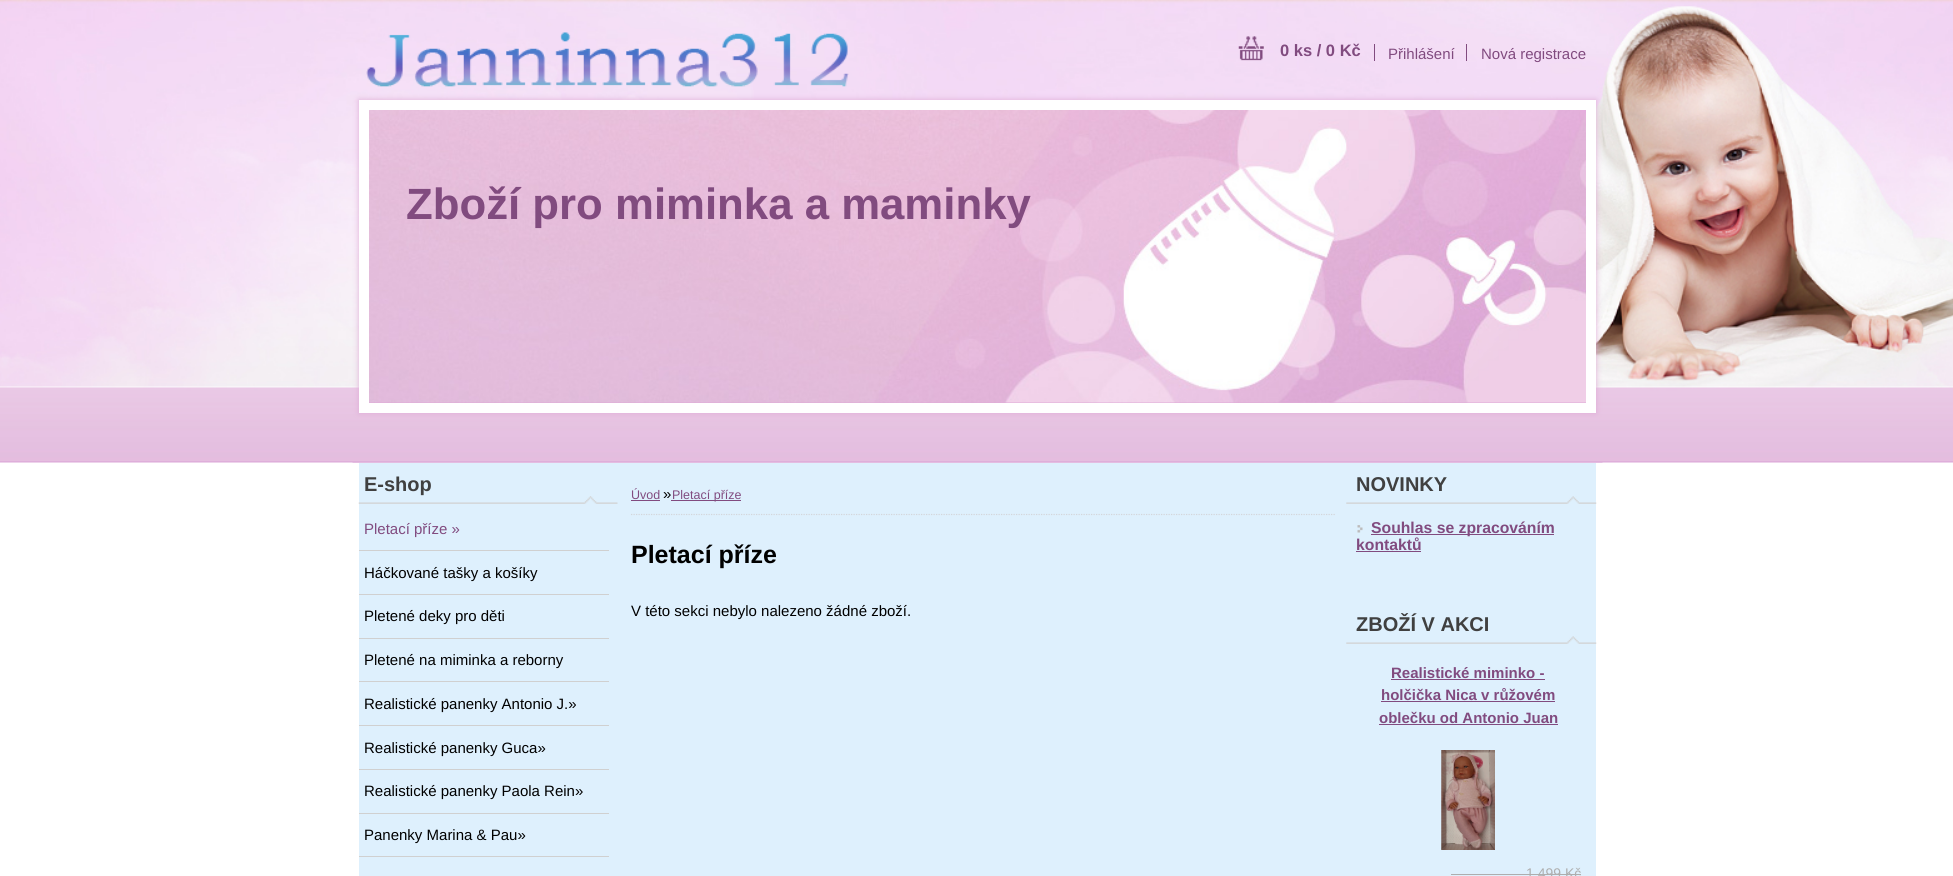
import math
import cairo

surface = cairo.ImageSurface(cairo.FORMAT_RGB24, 1953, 876)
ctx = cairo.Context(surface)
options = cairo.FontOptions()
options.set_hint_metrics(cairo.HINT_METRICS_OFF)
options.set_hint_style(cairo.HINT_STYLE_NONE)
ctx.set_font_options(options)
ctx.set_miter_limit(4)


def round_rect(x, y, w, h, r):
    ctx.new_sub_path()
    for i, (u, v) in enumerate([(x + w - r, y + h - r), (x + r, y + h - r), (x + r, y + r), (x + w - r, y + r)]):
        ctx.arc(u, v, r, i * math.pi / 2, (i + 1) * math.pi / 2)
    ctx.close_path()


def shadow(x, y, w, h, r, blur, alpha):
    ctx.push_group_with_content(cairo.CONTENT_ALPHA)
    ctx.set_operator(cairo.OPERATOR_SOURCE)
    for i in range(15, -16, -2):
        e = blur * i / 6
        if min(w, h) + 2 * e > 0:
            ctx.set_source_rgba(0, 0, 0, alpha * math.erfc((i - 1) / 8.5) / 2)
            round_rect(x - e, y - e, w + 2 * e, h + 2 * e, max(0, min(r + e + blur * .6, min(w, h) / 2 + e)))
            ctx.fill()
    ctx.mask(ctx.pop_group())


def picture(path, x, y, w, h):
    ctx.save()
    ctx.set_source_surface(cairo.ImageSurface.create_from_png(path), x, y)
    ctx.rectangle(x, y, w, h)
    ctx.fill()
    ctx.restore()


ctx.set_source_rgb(1, 1, 1)
ctx.paint()
picture("img1.png", 0, 0, 1953, 463)
picture("img2.png", 352, 90, 1251, 373)
picture("img3.png", 1238, 36, 26, 25)
ctx.select_font_face("Liberation Sans", cairo.FONT_SLANT_NORMAL, cairo.FONT_WEIGHT_BOLD)
ctx.set_font_size(16.5)
ctx.set_source_rgb(0.506, 0.294, 0.498)
ctx.move_to(1280, 56)
ctx.show_text("0 ks / 0 Kč")
ctx.rectangle(1374, 44, 1, 17)
ctx.fill()
ctx.select_font_face("Liberation Sans")
ctx.set_font_size(15)
ctx.move_to(1388, 59)
ctx.show_text("Přihlášení")
ctx.rectangle(1466, 44, 1, 17)
ctx.fill()
ctx.move_to(1481, 59)
ctx.show_text("Nová registrace")
ctx.set_source_rgb(0.871, 0.671, 0.839)
shadow(359, 100, 1237, 313, 0, 3, 1)
picture("img4.png", 369, 110, 1217, 293)
ctx.rectangle(364, 105, 1227, 303)
ctx.set_source_rgb(1, 1, 1)
ctx.set_line_width(10)
ctx.stroke()
picture("img5.png", 366, 32, 483, 55)
ctx.select_font_face("Liberation Sans", cairo.FONT_SLANT_NORMAL, cairo.FONT_WEIGHT_BOLD)
ctx.set_font_size(43.75)
ctx.set_source_rgb(0.506, 0.294, 0.498)
ctx.move_to(406, 219)
ctx.show_text("Zboží pro miminka a maminky")
ctx.set_source_rgb(0.871, 0.941, 0.992)
ctx.rectangle(359, 463, 1237, 413)
ctx.fill()
picture("img6.png", 358, 496, 260, 8)
ctx.set_font_size(20)
ctx.set_source_rgb(0.251, 0.251, 0.251)
ctx.move_to(364, 491)
ctx.show_text("E-shop")
ctx.set_source_rgb(0.816, 0.816, 0.816)
ctx.rectangle(359, 550, 250, 1)
ctx.fill()
ctx.select_font_face("Liberation Sans")
ctx.set_font_size(15)
ctx.set_source_rgb(0.506, 0.294, 0.498)
ctx.move_to(364, 534)
ctx.show_text("Pletací příze »")
ctx.set_source_rgb(0.816, 0.816, 0.816)
ctx.rectangle(359, 594, 250, 1)
ctx.fill()
ctx.set_source_rgb(0, 0, 0)
ctx.move_to(364, 578)
ctx.show_text("Háčkované tašky a košíky")
ctx.set_source_rgb(0.816, 0.816, 0.816)
ctx.rectangle(359, 638, 250, 1)
ctx.fill()
ctx.set_source_rgb(0, 0, 0)
ctx.move_to(364, 621)
ctx.show_text("Pletené deky pro děti")
ctx.set_source_rgb(0.816, 0.816, 0.816)
ctx.rectangle(359, 681, 250, 1)
ctx.fill()
ctx.set_source_rgb(0, 0, 0)
ctx.move_to(364, 665)
ctx.show_text("Pletené na miminka a reborny")
ctx.set_source_rgb(0.816, 0.816, 0.816)
ctx.rectangle(359, 725, 250, 1)
ctx.fill()
ctx.set_source_rgb(0, 0, 0)
ctx.move_to(364, 709)
ctx.show_text("Realistické panenky Antonio J.»")
ctx.set_source_rgb(0.816, 0.816, 0.816)
ctx.rectangle(359, 769, 250, 1)
ctx.fill()
ctx.set_source_rgb(0, 0, 0)
ctx.move_to(364, 753)
ctx.show_text("Realistické panenky Guca»")
ctx.set_source_rgb(0.816, 0.816, 0.816)
ctx.rectangle(359, 813, 250, 1)
ctx.fill()
ctx.set_source_rgb(0, 0, 0)
ctx.move_to(364, 796)
ctx.show_text("Realistické panenky Paola Rein»")
ctx.set_source_rgb(0.816, 0.816, 0.816)
ctx.rectangle(359, 856, 250, 1)
ctx.fill()
ctx.set_source_rgb(0, 0, 0)
ctx.move_to(364, 840)
ctx.show_text("Panenky Marina & Pau»")
ctx.new_path()
ctx.move_to(631, 514.5)
ctx.line_to(1336, 514.5)
ctx.set_source_rgb(0.827, 0.835, 0.855)
ctx.set_line_width(1.2)
ctx.set_dash([1.25, 1.25])
ctx.stroke()
ctx.set_font_size(12.5)
ctx.set_source_rgb(0.506, 0.294, 0.498)
ctx.move_to(631, 499)
ctx.show_text("Úvod")
ctx.rectangle(631, 500, 29, 1)
ctx.fill()
ctx.set_font_size(15)
ctx.set_source_rgb(0, 0, 0)
ctx.move_to(663, 499)
ctx.show_text("»")
ctx.set_source_rgb(0.506, 0.294, 0.498)
ctx.rectangle(671, 500, 70, 1)
ctx.fill()
ctx.set_font_size(12.5)
ctx.move_to(672, 499)
ctx.show_text("Pletací příze")
ctx.select_font_face("Liberation Sans", cairo.FONT_SLANT_NORMAL, cairo.FONT_WEIGHT_BOLD)
ctx.set_font_size(25)
ctx.set_source_rgb(0, 0, 0)
ctx.move_to(631, 563)
ctx.show_text("Pletací příze")
ctx.select_font_face("Liberation Sans")
ctx.set_font_size(15)
ctx.move_to(631, 616)
ctx.show_text("V této sekci nebylo nalezeno žádné zboží.")
picture("img7.png", 1346, 496, 251, 8)
ctx.select_font_face("Liberation Sans", cairo.FONT_SLANT_NORMAL, cairo.FONT_WEIGHT_BOLD)
ctx.set_font_size(20)
ctx.set_source_rgb(0.251, 0.251, 0.251)
ctx.move_to(1356, 491)
ctx.show_text("NOVINKY")
picture("img8.png", 1357, 525, 6, 8)
ctx.set_source_rgb(0.506, 0.294, 0.498)
ctx.rectangle(1371, 534, 183, 1)
ctx.fill()
ctx.set_font_size(15.75)
ctx.move_to(1371, 533)
ctx.show_text("Souhlas se zpracováním")
ctx.move_to(1356, 550)
ctx.show_text("kontaktů")
ctx.rectangle(1356, 551, 65, 1)
ctx.fill()
picture("img7.png", 1346, 636, 251, 8)
ctx.set_font_size(20)
ctx.set_source_rgb(0.251, 0.251, 0.251)
ctx.move_to(1356, 631)
ctx.show_text("ZBOŽÍ V AKCI")
ctx.set_font_size(15)
ctx.set_source_rgb(0.506, 0.294, 0.498)
ctx.move_to(1391, 678)
ctx.show_text("Realistické miminko -")
ctx.rectangle(1391, 679, 154, 1)
ctx.fill()
ctx.move_to(1381, 700)
ctx.show_text("holčička Nica v růžovém")
ctx.rectangle(1381, 701, 174, 1)
ctx.fill()
ctx.move_to(1379, 723)
ctx.show_text("oblečku od Antonio Juan")
ctx.rectangle(1379, 724, 179, 1)
ctx.fill()
picture("img9.png", 1441, 750, 54, 100)
ctx.select_font_face("Liberation Sans")
ctx.set_font_size(14)
ctx.set_source_rgb(0.682, 0.682, 0.682)
ctx.move_to(1526, 878)
ctx.show_text("1 499 Kč")
ctx.rectangle(1451, 874, 75, 1)
ctx.fill()
ctx.rectangle(1526, 874, 55, 1)
ctx.fill()
surface.write_to_png("page.png")
